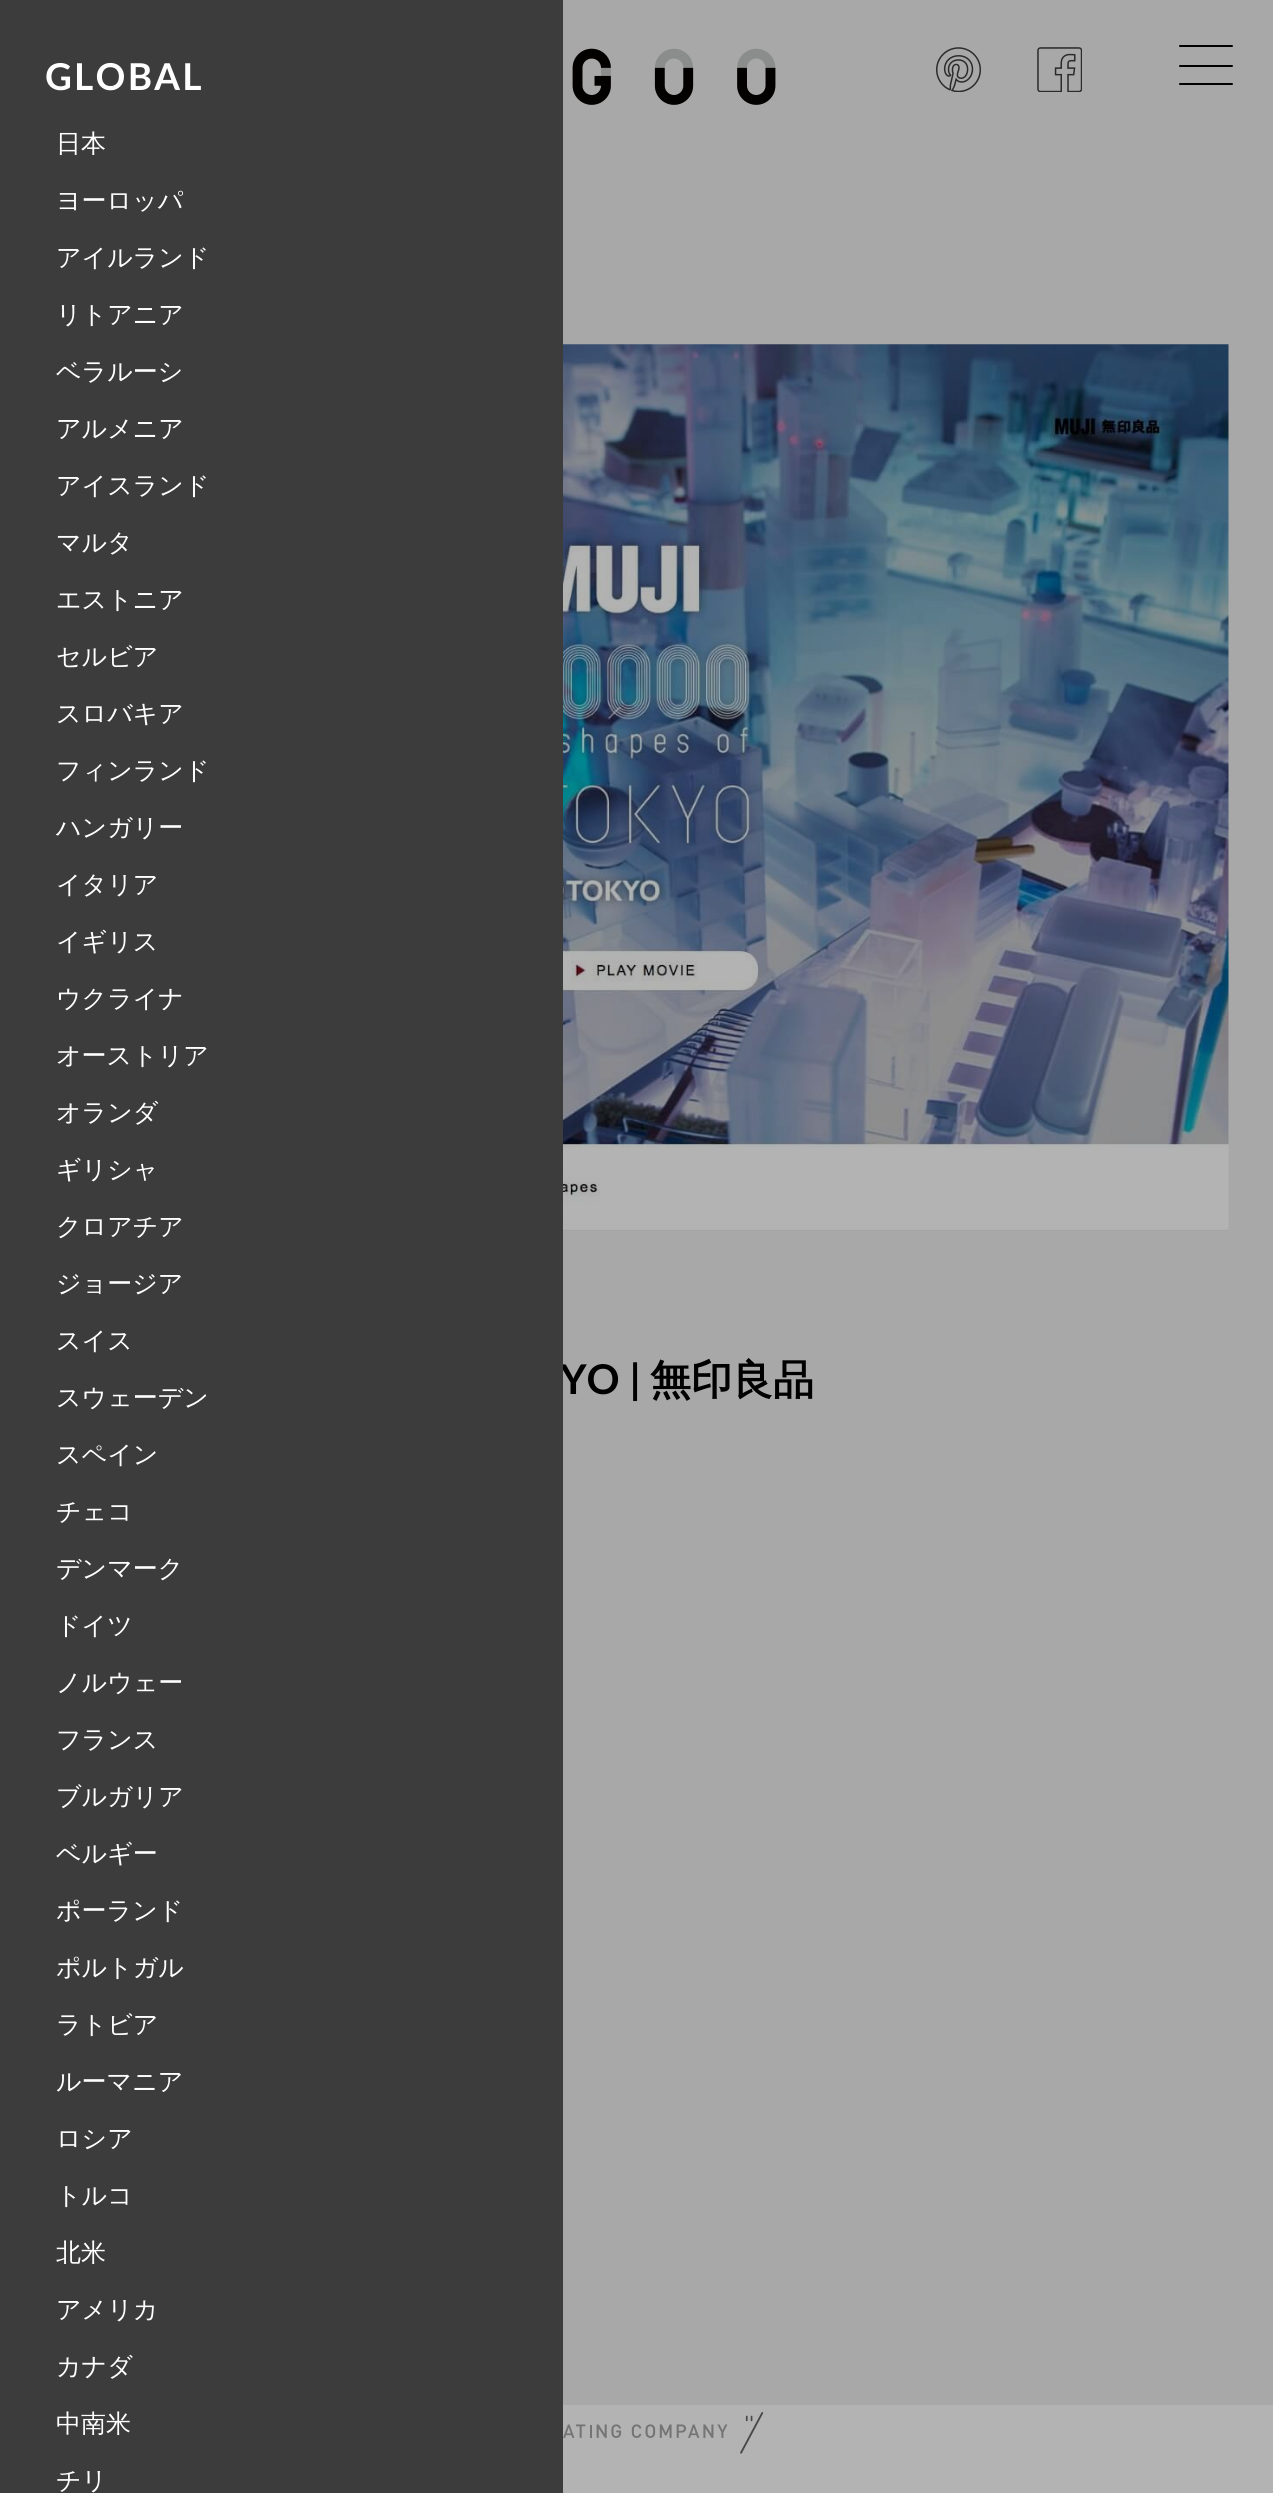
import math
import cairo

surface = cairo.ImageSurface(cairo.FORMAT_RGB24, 1273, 2493)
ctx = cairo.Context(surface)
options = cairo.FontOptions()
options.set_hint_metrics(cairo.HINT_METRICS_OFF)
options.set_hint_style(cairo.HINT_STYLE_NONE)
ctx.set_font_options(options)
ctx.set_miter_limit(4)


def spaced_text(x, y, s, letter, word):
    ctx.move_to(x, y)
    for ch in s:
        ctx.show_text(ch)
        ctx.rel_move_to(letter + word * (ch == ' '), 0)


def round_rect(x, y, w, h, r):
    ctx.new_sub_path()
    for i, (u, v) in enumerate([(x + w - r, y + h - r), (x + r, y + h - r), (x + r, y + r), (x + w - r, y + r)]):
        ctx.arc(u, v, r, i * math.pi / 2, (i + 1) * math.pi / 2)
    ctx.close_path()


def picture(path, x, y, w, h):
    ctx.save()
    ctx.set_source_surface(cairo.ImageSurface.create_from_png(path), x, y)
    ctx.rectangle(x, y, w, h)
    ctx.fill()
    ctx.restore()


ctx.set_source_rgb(0.659, 0.659, 0.659)
ctx.paint()
ctx.select_font_face("Lato", cairo.FONT_SLANT_NORMAL, cairo.FONT_WEIGHT_BOLD)
ctx.set_font_size(41)
ctx.set_source_rgb(0, 0, 0)
ctx.move_to(560, 1394)
ctx.show_text("YO |")
ctx.set_source_rgb(0.235, 0.235, 0.235)
ctx.rectangle(0, 0, 563, 2493)
ctx.fill()
ctx.set_font_size(37)
ctx.set_source_rgb(1, 1, 1)
spaced_text(45, 90, "GLOBAL", 2.25, 0)
ctx.select_font_face("WenQuanYi Zen Hei Medium")
ctx.set_font_size(25)
ctx.move_to(56, 152)
ctx.show_text("日本")
ctx.move_to(56, 209)
ctx.show_text("ヨーロッパ")
ctx.move_to(56, 266)
ctx.show_text("アイルランド")
ctx.move_to(56, 323)
ctx.show_text("リトアニア")
ctx.move_to(56, 380)
ctx.show_text("ベラルーシ")
ctx.move_to(56, 437)
ctx.show_text("アルメニア")
ctx.move_to(56, 494)
ctx.show_text("アイスランド")
ctx.move_to(56, 551)
ctx.show_text("マルタ")
ctx.move_to(56, 608)
ctx.show_text("エストニア")
ctx.move_to(56, 665)
ctx.show_text("セルビア")
ctx.move_to(56, 722)
ctx.show_text("スロバキア")
ctx.move_to(56, 779)
ctx.show_text("フィンランド")
ctx.move_to(56, 836)
ctx.show_text("ハンガリー")
ctx.move_to(56, 893)
ctx.show_text("イタリア")
ctx.move_to(56, 950)
ctx.show_text("イギリス")
ctx.move_to(56, 1007)
ctx.show_text("ウクライナ")
ctx.move_to(56, 1064)
ctx.show_text("オーストリア")
ctx.move_to(56, 1121)
ctx.show_text("オランダ")
ctx.move_to(56, 1178)
ctx.show_text("ギリシャ")
ctx.move_to(56, 1235)
ctx.show_text("クロアチア")
ctx.move_to(56, 1292)
ctx.show_text("ジョージア")
ctx.move_to(56, 1349)
ctx.show_text("スイス")
ctx.move_to(56, 1406)
ctx.show_text("スウェーデン")
ctx.move_to(56, 1463)
ctx.show_text("スペイン")
ctx.move_to(56, 1520)
ctx.show_text("チェコ")
ctx.move_to(56, 1577)
ctx.show_text("デンマーク")
ctx.move_to(56, 1634)
ctx.show_text("ドイツ")
ctx.move_to(56, 1691)
ctx.show_text("ノルウェー")
ctx.move_to(56, 1748)
ctx.show_text("フランス")
ctx.move_to(56, 1805)
ctx.show_text("ブルガリア")
ctx.move_to(56, 1862)
ctx.show_text("ベルギー")
ctx.move_to(56, 1919)
ctx.show_text("ポーランド")
ctx.move_to(56, 1976)
ctx.show_text("ポルトガル")
ctx.move_to(56, 2033)
ctx.show_text("ラトビア")
ctx.move_to(56, 2090)
ctx.show_text("ルーマニア")
ctx.move_to(56, 2147)
ctx.show_text("ロシア")
ctx.move_to(56, 2204)
ctx.show_text("トルコ")
ctx.move_to(56, 2261)
ctx.show_text("北米")
ctx.move_to(56, 2318)
ctx.show_text("アメリカ")
ctx.move_to(56, 2375)
ctx.show_text("カナダ")
ctx.move_to(56, 2432)
ctx.show_text("中南米")
ctx.move_to(56, 2489)
ctx.show_text("チリ")
picture("img1.png", 572, 48, 204, 57)
picture("img2.png", 936, 47, 45, 45)
picture("img3.png", 1037, 47, 45, 45)
ctx.set_source_rgb(0, 0, 0)
round_rect(1179, 45, 54, 2, 1)
ctx.fill()
round_rect(1179, 65, 54, 2, 1)
ctx.fill()
round_rect(1179, 83, 54, 2, 1)
ctx.fill()
picture("img4.png", 563, 344, 666, 887)
ctx.select_font_face("WenQuanYi Zen Hei", cairo.FONT_SLANT_NORMAL, cairo.FONT_WEIGHT_BOLD)
ctx.set_font_size(41)
ctx.move_to(650, 1394)
ctx.show_text("無印良品")
ctx.set_source_rgb(0.702, 0.702, 0.702)
ctx.rectangle(563, 2405, 710, 88)
ctx.fill()
picture("img5.png", 563, 2412, 201, 42)
surface.write_to_png("page.png")
